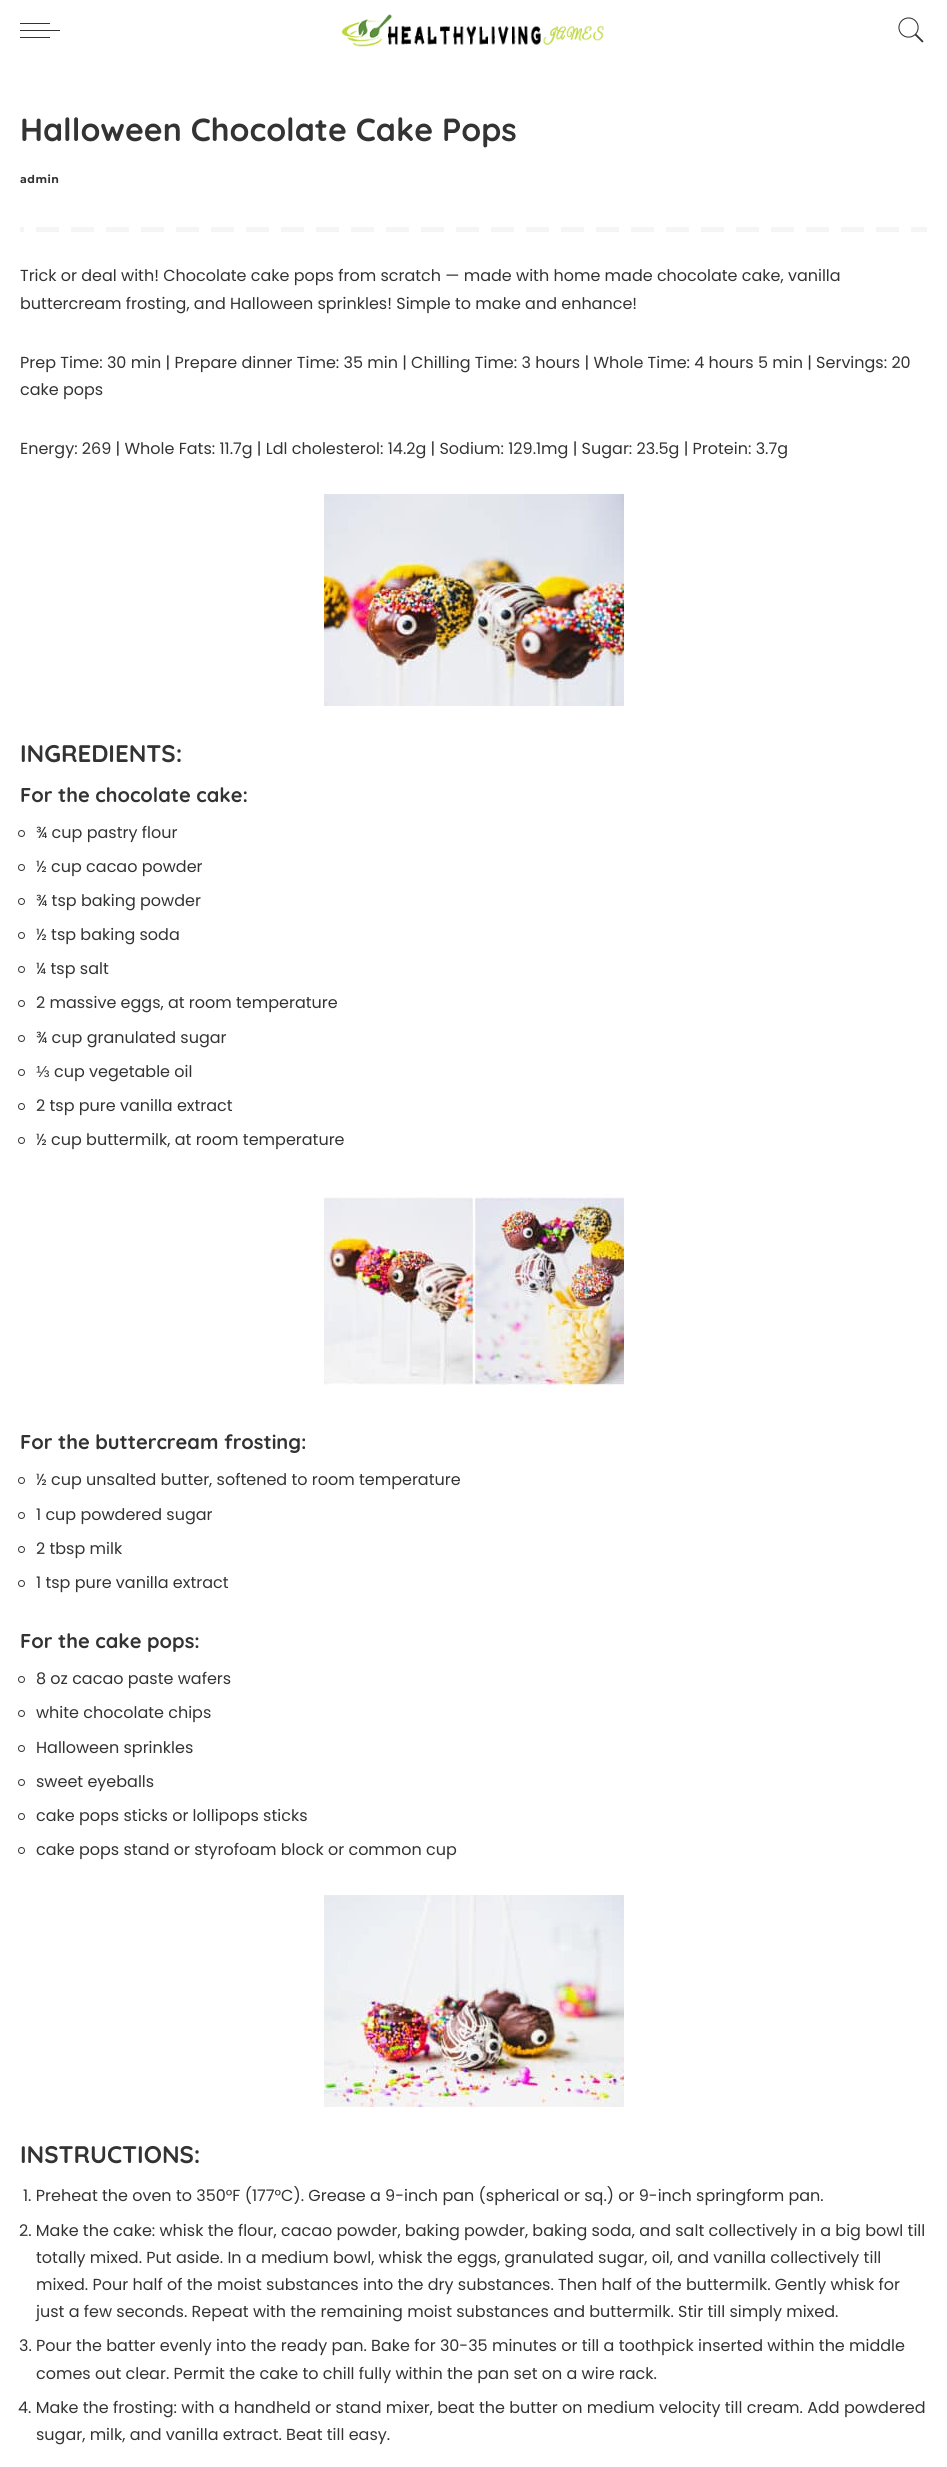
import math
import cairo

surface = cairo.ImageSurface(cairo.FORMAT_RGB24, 947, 2467)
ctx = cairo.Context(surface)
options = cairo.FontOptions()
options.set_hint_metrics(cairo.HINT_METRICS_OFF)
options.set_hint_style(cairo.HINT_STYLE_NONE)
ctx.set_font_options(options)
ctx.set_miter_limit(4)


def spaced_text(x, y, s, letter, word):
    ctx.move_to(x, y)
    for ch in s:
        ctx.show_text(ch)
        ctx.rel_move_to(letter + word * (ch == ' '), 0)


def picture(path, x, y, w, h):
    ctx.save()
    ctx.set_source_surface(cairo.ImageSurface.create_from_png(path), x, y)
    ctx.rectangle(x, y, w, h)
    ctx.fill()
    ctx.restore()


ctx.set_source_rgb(1, 1, 1)
ctx.paint()
ctx.set_source_rgb(0.2, 0.2, 0.2)
ctx.rectangle(20, 30, 40, 1)
ctx.fill()
ctx.rectangle(20, 23, 30, 1)
ctx.fill()
ctx.rectangle(20, 37, 30, 1)
ctx.fill()
picture("img1.png", 341, 14, 263, 33)
picture("img2.png", 898, 17, 26, 26)
picture("img3.png", 20, 227, 907, 5)
ctx.select_font_face("Quicksand", cairo.FONT_SLANT_NORMAL, cairo.FONT_WEIGHT_BOLD)
ctx.set_font_size(32)
ctx.move_to(20, 141)
ctx.show_text("Halloween Chocolate Cake Pops")
ctx.select_font_face("Montserrat", cairo.FONT_SLANT_NORMAL, cairo.FONT_WEIGHT_BOLD)
ctx.set_font_size(11)
spaced_text(20, 183, "admin", 0.5, 0)
ctx.select_font_face("Poppins")
ctx.set_font_size(16)
ctx.move_to(20, 281)
ctx.show_text("Trick or deal with! Chocolate cake pops from scratch — made with home made chocolate cake, vanilla")
ctx.move_to(20, 309)
ctx.show_text("buttercream frosting, and Halloween sprinkles! Simple to make and enhance!")
ctx.move_to(20, 368)
ctx.show_text("Prep Time: 30 min | Prepare dinner Time: 35 min | Chilling Time: 3 hours | Whole Time: 4 hours 5 min | Servings: 20")
ctx.move_to(20, 395)
ctx.show_text("cake pops")
ctx.move_to(20, 454)
ctx.show_text("Energy: 269 | Whole Fats: 11.7g | Ldl cholesterol: 14.2g | Sodium: 129.1mg | Sugar: 23.5g | Protein: 3.7g")
picture("img4.png", 324, 494, 300, 212)
ctx.select_font_face("Quicksand", cairo.FONT_SLANT_NORMAL, cairo.FONT_WEIGHT_BOLD)
ctx.set_font_size(24)
ctx.move_to(20, 762)
ctx.show_text("INGREDIENTS:")
ctx.set_font_size(20)
ctx.move_to(20, 802)
ctx.show_text("For the chocolate cake:")
ctx.new_path()
ctx.arc(21.5, 833.5, 3, 0, 2 * math.pi)
ctx.set_line_width(1)
ctx.stroke()
ctx.select_font_face("Poppins")
ctx.set_font_size(16)
ctx.move_to(36, 838)
ctx.show_text("¾ cup pastry flour")
ctx.new_path()
ctx.arc(21.5, 867.5, 3, 0, 2 * math.pi)
ctx.stroke()
ctx.move_to(36, 872)
ctx.show_text("½ cup cacao powder")
ctx.new_path()
ctx.arc(21.5, 901.5, 3, 0, 2 * math.pi)
ctx.stroke()
ctx.move_to(36, 906)
ctx.show_text("¾ tsp baking powder")
ctx.new_path()
ctx.arc(21.5, 935.5, 3, 0, 2 * math.pi)
ctx.stroke()
ctx.move_to(36, 940)
ctx.show_text("½ tsp baking soda")
ctx.new_path()
ctx.arc(21.5, 969.5, 3, 0, 2 * math.pi)
ctx.stroke()
ctx.move_to(36, 974)
ctx.show_text("¼ tsp salt")
ctx.new_path()
ctx.arc(21.5, 1003.5, 3, 0, 2 * math.pi)
ctx.stroke()
ctx.move_to(36, 1008)
ctx.show_text("2 massive eggs, at room temperature")
ctx.new_path()
ctx.arc(21.5, 1038.5, 3, 0, 2 * math.pi)
ctx.stroke()
ctx.move_to(36, 1043)
ctx.show_text("¾ cup granulated sugar")
ctx.new_path()
ctx.arc(21.5, 1072.5, 3, 0, 2 * math.pi)
ctx.stroke()
ctx.select_font_face("Liberation Sans")
ctx.move_to(36, 1077)
ctx.show_text("⅓")
ctx.select_font_face("Poppins")
ctx.move_to(54, 1077)
ctx.show_text("cup vegetable oil")
ctx.new_path()
ctx.arc(21.5, 1106.5, 3, 0, 2 * math.pi)
ctx.stroke()
ctx.move_to(36, 1111)
ctx.show_text("2 tsp pure vanilla extract")
ctx.new_path()
ctx.arc(21.5, 1140.5, 3, 0, 2 * math.pi)
ctx.stroke()
ctx.move_to(36, 1145)
ctx.show_text("½ cup buttermilk, at room temperature")
picture("img5.png", 324, 1194, 300, 199)
ctx.select_font_face("Quicksand", cairo.FONT_SLANT_NORMAL, cairo.FONT_WEIGHT_BOLD)
ctx.set_font_size(20)
ctx.move_to(20, 1449)
ctx.show_text("For the buttercream frosting:")
ctx.new_path()
ctx.arc(21.5, 1480.5, 3, 0, 2 * math.pi)
ctx.stroke()
ctx.select_font_face("Poppins")
ctx.set_font_size(16)
ctx.move_to(36, 1485)
ctx.show_text("½ cup unsalted butter, softened to room temperature")
ctx.new_path()
ctx.arc(21.5, 1515.5, 3, 0, 2 * math.pi)
ctx.stroke()
ctx.move_to(36, 1520)
ctx.show_text("1 cup powdered sugar")
ctx.new_path()
ctx.arc(21.5, 1549.5, 3, 0, 2 * math.pi)
ctx.stroke()
ctx.move_to(36, 1554)
ctx.show_text("2 tbsp milk")
ctx.new_path()
ctx.arc(21.5, 1583.5, 3, 0, 2 * math.pi)
ctx.stroke()
ctx.move_to(36, 1588)
ctx.show_text("1 tsp pure vanilla extract")
ctx.select_font_face("Quicksand", cairo.FONT_SLANT_NORMAL, cairo.FONT_WEIGHT_BOLD)
ctx.set_font_size(20)
ctx.move_to(20, 1648)
ctx.show_text("For the cake pops:")
ctx.new_path()
ctx.arc(21.5, 1679.5, 3, 0, 2 * math.pi)
ctx.stroke()
ctx.select_font_face("Poppins")
ctx.set_font_size(16)
ctx.move_to(36, 1684)
ctx.show_text("8 oz cacao paste wafers")
ctx.new_path()
ctx.arc(21.5, 1713.5, 3, 0, 2 * math.pi)
ctx.stroke()
ctx.move_to(36, 1718)
ctx.show_text("white chocolate chips")
ctx.new_path()
ctx.arc(21.5, 1748.5, 3, 0, 2 * math.pi)
ctx.stroke()
ctx.move_to(36, 1753)
ctx.show_text("Halloween sprinkles")
ctx.new_path()
ctx.arc(21.5, 1782.5, 3, 0, 2 * math.pi)
ctx.stroke()
ctx.move_to(36, 1787)
ctx.show_text("sweet eyeballs")
ctx.new_path()
ctx.arc(21.5, 1816.5, 3, 0, 2 * math.pi)
ctx.stroke()
ctx.move_to(36, 1821)
ctx.show_text("cake pops sticks or lollipops sticks")
ctx.new_path()
ctx.arc(21.5, 1850.5, 3, 0, 2 * math.pi)
ctx.stroke()
ctx.move_to(36, 1855)
ctx.show_text("cake pops stand or styrofoam block or common cup")
picture("img6.png", 324, 1895, 300, 212)
ctx.select_font_face("Quicksand", cairo.FONT_SLANT_NORMAL, cairo.FONT_WEIGHT_BOLD)
ctx.set_font_size(24)
ctx.move_to(20, 2163)
ctx.show_text("INSTRUCTIONS:")
ctx.select_font_face("Poppins")
ctx.set_font_size(16)
ctx.move_to(23, 2201)
ctx.show_text("1. Preheat the oven to 350°F (177°C). Grease a 9-inch pan (spherical or sq.) or 9-inch springform pan.")
ctx.move_to(19, 2236)
ctx.show_text("2. Make the cake: whisk the flour, cacao powder, baking powder, baking soda, and salt collectively in a big bowl till")
ctx.move_to(36, 2263)
ctx.show_text("totally mixed. Put aside. In a medium bowl, whisk the eggs, granulated sugar, oil, and vanilla collectively till")
ctx.move_to(36, 2290)
ctx.show_text("mixed. Pour half of the moist substances into the dry substances. Then half of the buttermilk. Gently whisk for")
ctx.move_to(36, 2317)
ctx.show_text("just a few seconds. Repeat with the remaining moist substances and buttermilk. Stir till simply mixed.")
ctx.move_to(19, 2351)
ctx.show_text("3. Pour the batter evenly into the ready pan. Bake for 30-35 minutes or till a toothpick inserted within the middle")
ctx.move_to(36, 2379)
ctx.show_text("comes out clear. Permit the cake to chill fully within the pan set on a wire rack.")
ctx.move_to(18, 2413)
ctx.show_text("4. Make the frosting: with a handheld or stand mixer, beat the butter on medium velocity till cream. Add powdered")
ctx.move_to(36, 2440)
ctx.show_text("sugar, milk, and vanilla extract. Beat till easy.")
surface.write_to_png("page.png")
